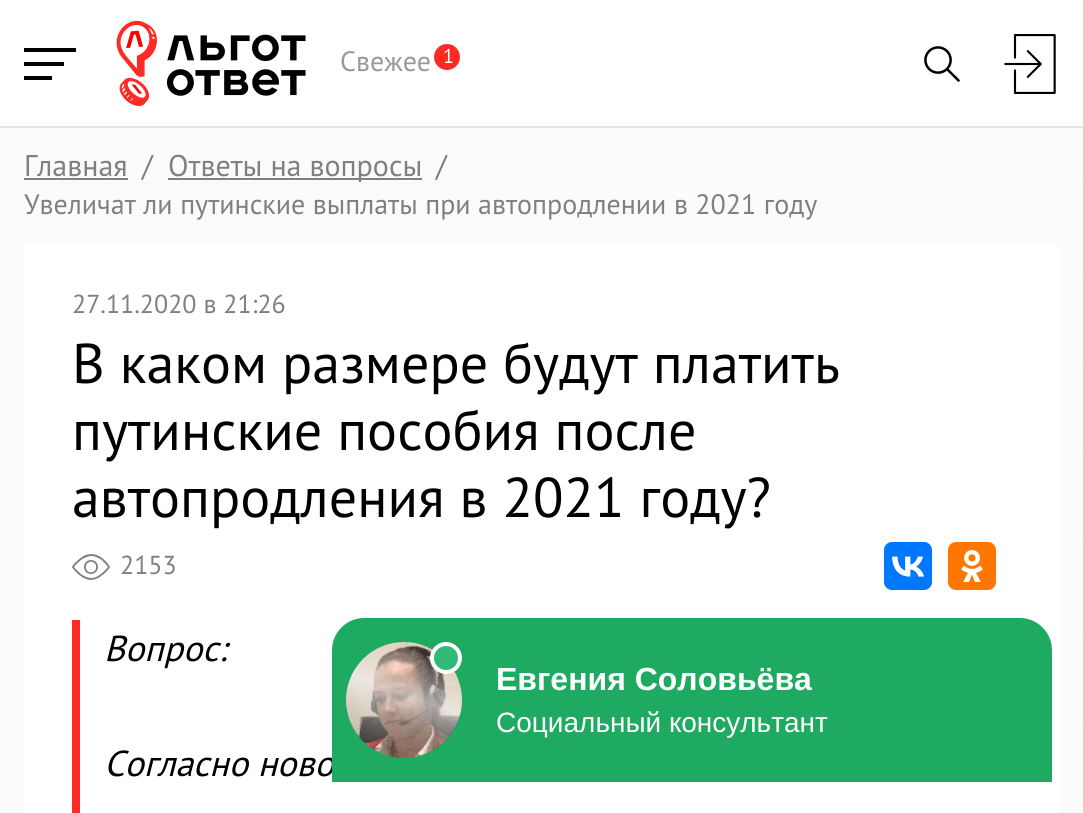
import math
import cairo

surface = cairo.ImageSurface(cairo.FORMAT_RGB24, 1083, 813)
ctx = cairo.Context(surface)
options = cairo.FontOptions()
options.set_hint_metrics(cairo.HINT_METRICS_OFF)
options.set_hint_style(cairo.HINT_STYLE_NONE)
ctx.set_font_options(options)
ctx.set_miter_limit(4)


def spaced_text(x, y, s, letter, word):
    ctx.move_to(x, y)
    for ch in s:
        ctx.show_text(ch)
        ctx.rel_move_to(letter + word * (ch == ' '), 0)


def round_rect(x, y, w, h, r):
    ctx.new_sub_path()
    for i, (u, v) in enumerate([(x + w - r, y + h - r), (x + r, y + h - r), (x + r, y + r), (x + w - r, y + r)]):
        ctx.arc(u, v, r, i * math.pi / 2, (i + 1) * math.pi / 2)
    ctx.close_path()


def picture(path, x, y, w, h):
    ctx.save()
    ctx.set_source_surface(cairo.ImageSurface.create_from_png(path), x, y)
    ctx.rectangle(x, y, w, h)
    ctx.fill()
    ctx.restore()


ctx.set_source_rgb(0.973, 0.973, 0.973)
ctx.paint()
ctx.set_source_rgb(0.984, 0.984, 0.984)
round_rect(0, -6, 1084, 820, 6)
ctx.fill()
ctx.set_source_rgb(1, 1, 1)
ctx.rectangle(0, 0, 1083, 126)
ctx.fill()
ctx.set_source_rgb(0.89, 0.89, 0.89)
ctx.rectangle(0, 126, 1083, 2)
ctx.fill()
ctx.set_source_rgb(0, 0, 0)
ctx.rectangle(24, 48, 52, 4)
ctx.fill()
ctx.rectangle(24, 62, 40, 4)
ctx.fill()
ctx.rectangle(24, 76, 28, 4)
ctx.fill()
picture("img1.png", 116, 20, 190, 86)
ctx.select_font_face("PT Sans")
ctx.set_font_size(28)
ctx.set_source_rgb(0.6, 0.6, 0.6)
ctx.move_to(340, 71)
ctx.show_text("Свежее")
ctx.set_source_rgb(1, 0.165, 0.141)
ctx.new_path()
ctx.arc(447, 57, 13, 0, 2 * math.pi)
ctx.fill()
ctx.set_font_size(20)
ctx.set_source_rgb(1, 1, 1)
spaced_text(443, 63, "1", -1, 0)
picture("img2.png", 924, 46, 36, 36)
picture("img3.png", 1004, 34, 52, 60)
ctx.set_font_size(30)
ctx.set_source_rgb(0.502, 0.502, 0.502)
ctx.move_to(24, 176)
ctx.show_text("Главная")
ctx.rectangle(24, 178, 104, 2)
ctx.fill()
ctx.move_to(142, 176)
ctx.show_text("/")
ctx.rectangle(168, 178, 254, 2)
ctx.fill()
ctx.move_to(168, 176)
ctx.show_text("Ответы на вопросы")
ctx.move_to(436, 176)
ctx.show_text("/")
ctx.set_font_size(28)
ctx.move_to(24, 214)
ctx.show_text("Увеличат ли путинские выплаты при автопродлении в 2021 году")
ctx.set_source_rgb(0.973, 0.973, 0.973)
ctx.rectangle(0, 182, 1083, 2)
ctx.fill()
ctx.rectangle(0, 272, 1083, 2)
ctx.fill()
ctx.rectangle(0, 362, 1083, 2)
ctx.fill()
ctx.rectangle(0, 452, 1083, 2)
ctx.fill()
ctx.rectangle(0, 542, 1083, 2)
ctx.fill()
ctx.rectangle(0, 632, 1083, 2)
ctx.fill()
ctx.rectangle(0, 722, 1083, 2)
ctx.fill()
ctx.save()
round_rect(0, -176, 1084, 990, 6)
ctx.clip()
ctx.rectangle(0, 812, 1083, 1)
ctx.fill()
ctx.restore()
ctx.set_source_rgb(1, 1, 1)
ctx.rectangle(24, 244, 1036, 569)
ctx.fill()
ctx.set_font_size(26)
ctx.set_source_rgb(0.502, 0.502, 0.502)
ctx.move_to(72, 313)
ctx.show_text("27.11.2020 в 21:26")
ctx.set_font_size(56)
ctx.set_source_rgb(0, 0, 0)
ctx.move_to(72, 383)
ctx.show_text("В каком размере будут платить")
ctx.move_to(72, 450)
ctx.show_text("путинские пособия после")
ctx.move_to(72, 517)
ctx.show_text("автопродления в 2021 году?")
picture("img4.png", 72, 554, 38, 26)
ctx.set_font_size(26)
ctx.set_source_rgb(0.502, 0.502, 0.502)
ctx.move_to(120, 574)
ctx.show_text("2153")
ctx.set_source_rgb(0, 0.467, 1)
round_rect(884, 542, 48, 48, 8)
ctx.fill()
picture("img5.png", 892, 556, 33, 21)
ctx.set_source_rgb(1, 0.467, 0)
round_rect(948, 542, 48, 48, 8)
ctx.fill()
picture("img6.png", 961, 550, 22, 32)
ctx.set_source_rgb(1, 0.165, 0.141)
ctx.rectangle(72, 620, 8, 193)
ctx.fill()
ctx.select_font_face("PT Sans", cairo.FONT_SLANT_ITALIC)
ctx.set_font_size(36)
ctx.set_source_rgb(0, 0, 0)
ctx.move_to(104, 661)
ctx.show_text("Вопрос:")
ctx.move_to(104, 776)
ctx.show_text("Согласно ново")
ctx.set_source_rgb(0.118, 0.667, 0.38)
ctx.new_path()
ctx.move_to(364, 618)
ctx.line_to(1020, 618)
ctx.curve_to(1037.5, 618, 1052, 632.5, 1052, 650)
ctx.line_to(1052, 782)
ctx.line_to(332, 782)
ctx.line_to(332, 650)
ctx.curve_to(332, 632.5, 346.5, 618, 364, 618)
ctx.close_path()
ctx.fill()
ctx.set_source_rgb(0.09, 0.502, 0.286)
ctx.arc(404, 700, 58, 0, 2 * math.pi)
ctx.fill()
picture("img7.png", 346, 642, 116, 116)
gradient = cairo.LinearGradient(424, 652, 384, 761)
gradient.add_color_stop_rgba(0, 1, 1, 1, 0)
gradient.add_color_stop_rgba(0.4, 1, 1, 1, 0.6)
gradient.add_color_stop_rgba(0.6, 1, 1, 1, 0.36)
gradient.add_color_stop_rgba(1, 1, 1, 1, 0)
ctx.set_source(gradient)
ctx.new_path()
ctx.move_to(396, 642)
ctx.line_to(447, 661)
ctx.curve_to(456, 671, 462, 685, 462, 700)
ctx.curve_to(462, 732, 436, 758, 404, 758)
ctx.curve_to(372, 758, 346, 732, 346, 700)
ctx.curve_to(346, 671, 368, 646, 396, 642)
ctx.close_path()
ctx.fill()
ctx.set_source_rgb(0.192, 0.725, 0.471)
ctx.arc(446, 658, 14, 0, 2 * math.pi)
ctx.fill_preserve()
ctx.set_source_rgb(1, 1, 1)
ctx.set_line_width(4)
ctx.stroke()
ctx.select_font_face("Liberation Sans", cairo.FONT_SLANT_NORMAL, cairo.FONT_WEIGHT_BOLD)
ctx.set_font_size(32)
ctx.move_to(496, 690)
ctx.show_text("Евгения Соловьёва")
ctx.select_font_face("Liberation Sans")
ctx.set_font_size(28)
ctx.move_to(496, 732)
ctx.show_text("Социальный консультант")
surface.write_to_png("page.png")
